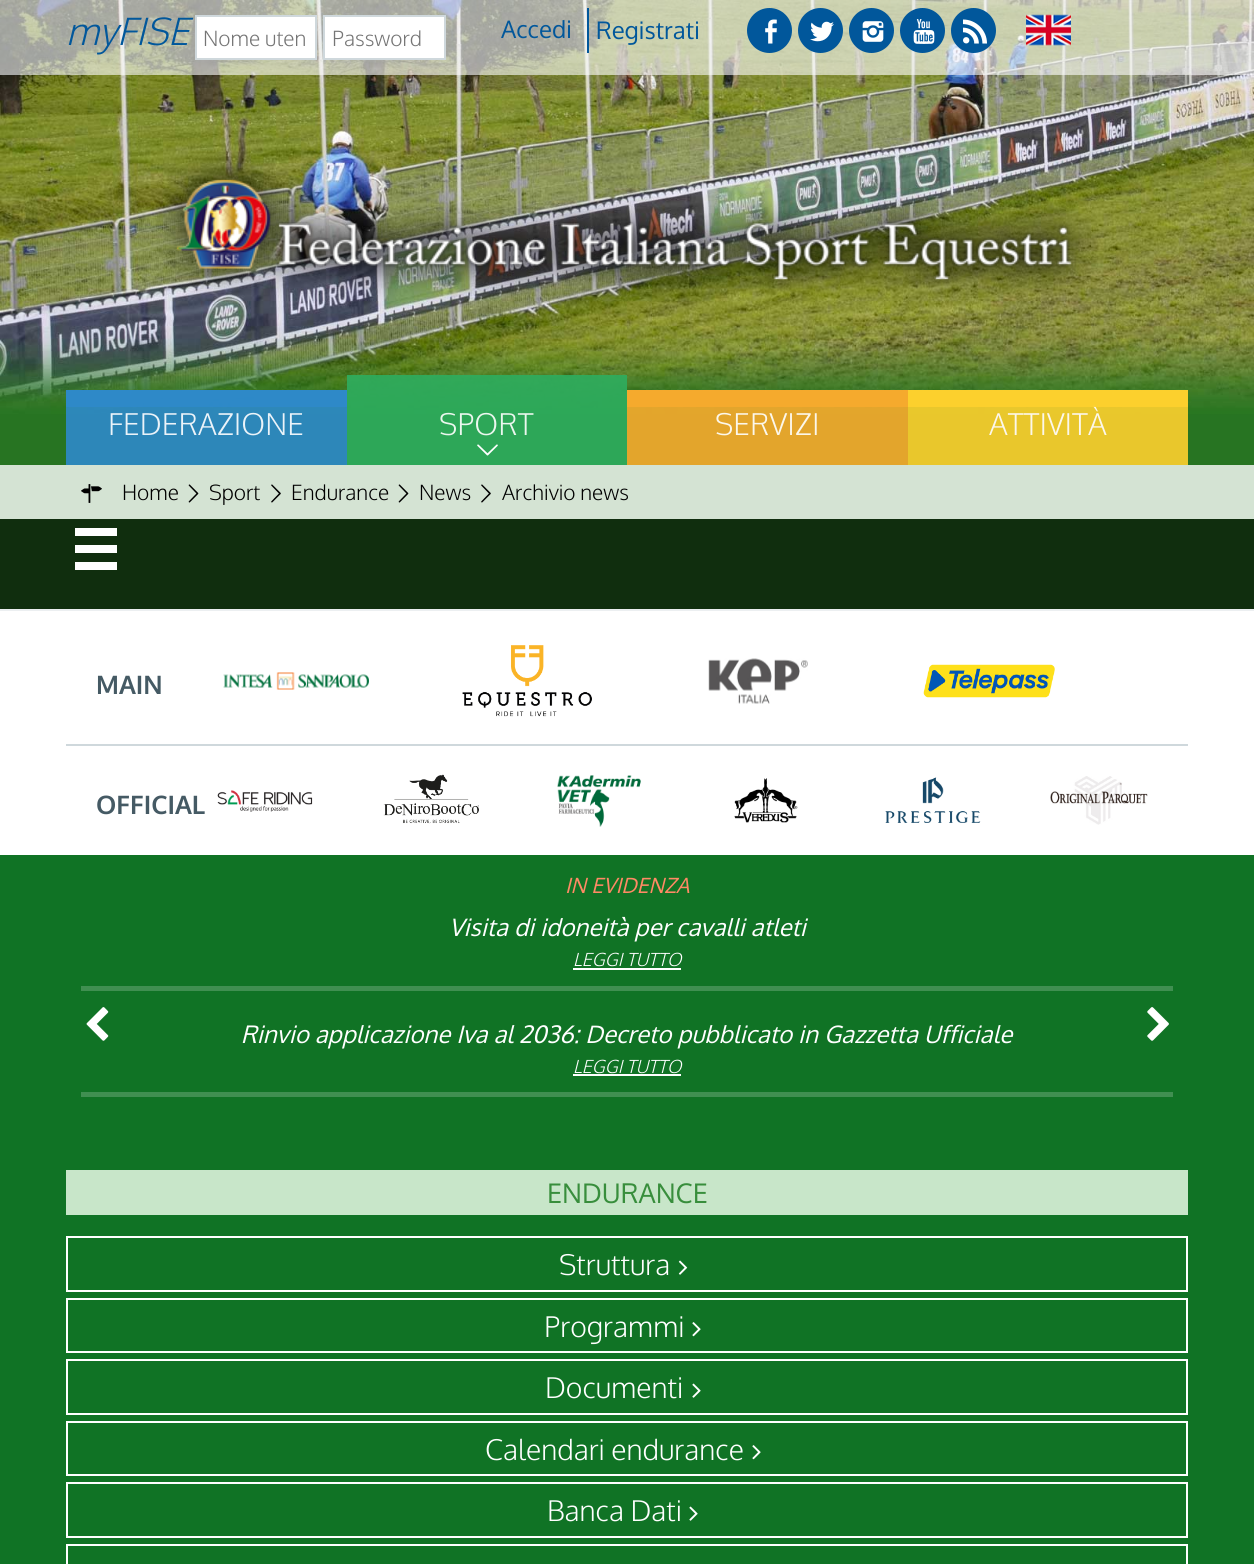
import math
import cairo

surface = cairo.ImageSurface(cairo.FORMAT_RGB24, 1254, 1564)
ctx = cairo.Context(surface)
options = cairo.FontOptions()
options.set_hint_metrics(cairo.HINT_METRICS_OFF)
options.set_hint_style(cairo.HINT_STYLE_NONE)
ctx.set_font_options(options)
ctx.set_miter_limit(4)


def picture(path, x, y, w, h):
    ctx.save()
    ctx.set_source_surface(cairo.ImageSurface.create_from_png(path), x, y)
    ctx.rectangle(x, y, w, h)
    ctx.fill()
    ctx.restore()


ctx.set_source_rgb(1, 1, 1)
ctx.paint()
picture("img1.png", 0, 0, 1254, 465)
ctx.set_source_rgba(1, 1, 1, 0.6)
ctx.rectangle(0, 0, 1254, 75)
ctx.fill()
ctx.select_font_face("Oxygen Light", cairo.FONT_SLANT_ITALIC)
ctx.set_font_size(37.5)
ctx.set_source_rgb(0.004, 0.341, 0.608)
ctx.move_to(66, 45)
ctx.show_text("myFISE")
ctx.set_source_rgb(1, 1, 1)
ctx.rectangle(196, 16, 120, 43)
ctx.fill_preserve()
ctx.set_source_rgb(0.812, 0.847, 0.863)
ctx.stroke()
ctx.select_font_face("Oxygen Light")
ctx.set_font_size(21)
ctx.set_source_rgb(0.459, 0.459, 0.459)
ctx.move_to(203, 46)
ctx.show_text("Nome uten")
ctx.set_source_rgb(1, 1, 1)
ctx.rectangle(324, 16, 121, 43)
ctx.fill_preserve()
ctx.set_source_rgb(0.812, 0.847, 0.863)
ctx.stroke()
ctx.set_source_rgb(0.459, 0.459, 0.459)
ctx.move_to(332, 46)
ctx.show_text("Password")
ctx.select_font_face("Oxygen")
ctx.set_font_size(24)
ctx.set_source_rgb(0.004, 0.341, 0.608)
ctx.move_to(501, 38)
ctx.show_text("Accedi")
ctx.rectangle(587, 8, 2, 45)
ctx.fill()
ctx.move_to(596, 39)
ctx.show_text("Registrati")
ctx.new_path()
ctx.arc(769.5, 30.5, 22.5, 0, 2 * math.pi)
ctx.fill()
picture("img2.png", 765, 19, 12, 25)
ctx.arc(820.5, 30.5, 22.5, 0, 2 * math.pi)
ctx.fill()
picture("img3.png", 810, 21, 24, 21)
ctx.arc(871.5, 30.5, 22.5, 0, 2 * math.pi)
ctx.fill()
picture("img4.png", 862, 21, 22, 21)
ctx.arc(922.5, 30.5, 22.5, 0, 2 * math.pi)
ctx.fill()
picture("img5.png", 913, 19, 22, 25)
ctx.arc(973.5, 30.5, 22.5, 0, 2 * math.pi)
ctx.fill()
picture("img6.png", 963, 19, 24, 25)
picture("img7.png", 1026, 14, 45, 32)
picture("img8.png", 156, 152, 942, 151)
ctx.set_source_rgba(0.18, 0.541, 0.792, 0.9)
ctx.rectangle(66, 390, 281, 75)
ctx.fill()
ctx.rectangle(66, 390, 281, 17)
ctx.fill()
ctx.select_font_face("Oxygen Light")
ctx.set_font_size(30)
ctx.set_source_rgb(0.918, 0.953, 0.973)
ctx.move_to(108, 435)
ctx.show_text("FEDERAZIONE")
ctx.set_source_rgba(0.18, 0.678, 0.369, 0.9)
ctx.rectangle(347, 390, 280, 75)
ctx.fill()
ctx.rectangle(347, 375, 280, 15)
ctx.fill()
ctx.set_source_rgb(0.918, 0.965, 0.933)
ctx.move_to(439, 435)
ctx.show_text("SPORT")
picture("img9.png", 477, 444, 21, 12)
ctx.set_source_rgba(0.969, 0.671, 0.18, 0.9)
ctx.rectangle(627, 390, 281, 75)
ctx.fill()
ctx.rectangle(627, 390, 281, 17)
ctx.fill()
ctx.set_source_rgb(0.988, 0.965, 0.918)
ctx.move_to(715, 435)
ctx.show_text("SERVIZI")
ctx.set_source_rgba(0.996, 0.816, 0.18, 0.9)
ctx.rectangle(908, 390, 280, 75)
ctx.fill()
ctx.set_source_rgb(0.988, 0.965, 0.918)
ctx.move_to(989, 435)
ctx.show_text("ATTIVITÀ")
ctx.set_source_rgba(0.996, 0.816, 0.18, 0.9)
ctx.rectangle(908, 390, 280, 17)
ctx.fill()
ctx.set_source_rgb(0.831, 0.89, 0.827)
ctx.rectangle(0, 465, 1254, 54)
ctx.fill()
picture("img10.png", 81, 484, 21, 19)
ctx.set_font_size(21)
ctx.set_source_rgb(0, 0, 0)
ctx.move_to(122, 500)
ctx.show_text("Home")
picture("img11.png", 188, 484, 11, 19)
ctx.move_to(209, 500)
ctx.show_text("Sport")
picture("img12.png", 271, 484, 10, 19)
ctx.move_to(291, 500)
ctx.show_text("Endurance")
picture("img11.png", 398, 484, 11, 19)
ctx.move_to(419, 500)
ctx.show_text("News")
picture("img12.png", 481, 484, 10, 19)
ctx.move_to(502, 500)
ctx.show_text("Archivio news")
ctx.set_source_rgb(0.063, 0.18, 0.055)
ctx.rectangle(0, 519, 1254, 90)
ctx.fill()
ctx.set_source_rgb(1, 1, 1)
ctx.new_path()
ctx.move_to(75, 528)
ctx.line_to(117, 528)
ctx.line_to(117, 536)
ctx.line_to(75, 536)
ctx.close_path()
ctx.move_to(75, 545)
ctx.line_to(117, 545)
ctx.line_to(117, 553)
ctx.line_to(75, 553)
ctx.close_path()
ctx.move_to(75, 562)
ctx.line_to(117, 562)
ctx.line_to(117, 570)
ctx.line_to(75, 570)
ctx.close_path()
ctx.fill()
ctx.set_source_rgb(0.925, 0.937, 0.945)
ctx.rectangle(0, 609, 1254, 2)
ctx.fill()
ctx.select_font_face("Oxygen", cairo.FONT_SLANT_NORMAL, cairo.FONT_WEIGHT_BOLD)
ctx.set_font_size(25.5)
ctx.set_source_rgb(0.271, 0.353, 0.392)
ctx.move_to(96, 694)
ctx.show_text("MAIN")
picture("img13.png", 223, 672, 146, 18)
picture("img14.png", 462, 645, 130, 72)
picture("img15.png", 708, 658, 100, 46)
picture("img16.png", 923, 664, 132, 34)
ctx.set_source_rgb(0.812, 0.847, 0.863)
ctx.rectangle(66, 744, 1122, 2)
ctx.fill()
ctx.set_source_rgb(0.271, 0.353, 0.392)
ctx.move_to(96, 814)
ctx.show_text("OFFICIAL")
picture("img17.png", 217, 790, 96, 22)
picture("img18.png", 383, 774, 96, 50)
picture("img19.png", 557, 775, 84, 52)
picture("img20.png", 734, 778, 64, 45)
picture("img21.png", 885, 777, 96, 46)
picture("img22.png", 1050, 776, 98, 49)
ctx.set_source_rgb(0.063, 0.451, 0.145)
ctx.rectangle(0, 855, 1254, 709)
ctx.fill()
ctx.select_font_face("Oxygen", cairo.FONT_SLANT_ITALIC)
ctx.set_font_size(21)
ctx.set_source_rgb(1, 0.541, 0.396)
ctx.move_to(565, 893)
ctx.show_text("IN EVIDENZA")
picture("img23.png", 86, 1007, 23, 34)
ctx.set_source_rgb(0.251, 0.561, 0.318)
ctx.rectangle(81, 986, 1092, 5)
ctx.fill()
ctx.set_font_size(24)
ctx.set_source_rgb(1, 1, 1)
ctx.move_to(449, 936)
ctx.show_text("Visita di idoneità per cavalli atleti")
ctx.select_font_face("Oxygen Light", cairo.FONT_SLANT_ITALIC)
ctx.set_font_size(18)
ctx.move_to(573, 966)
ctx.show_text("LEGGI TUTTO")
ctx.rectangle(573, 968, 108, 2)
ctx.fill()
ctx.set_source_rgb(0.251, 0.561, 0.318)
ctx.rectangle(81, 1092, 1092, 5)
ctx.fill()
ctx.select_font_face("Oxygen", cairo.FONT_SLANT_ITALIC)
ctx.set_font_size(24)
ctx.set_source_rgb(1, 1, 1)
ctx.move_to(241, 1043)
ctx.show_text("Rinvio applicazione Iva al 2036: Decreto pubblicato in Gazzetta Ufficiale")
ctx.select_font_face("Oxygen Light", cairo.FONT_SLANT_ITALIC)
ctx.set_font_size(18)
ctx.move_to(573, 1073)
ctx.show_text("LEGGI TUTTO")
ctx.rectangle(573, 1074, 108, 2)
ctx.fill()
picture("img24.png", 1147, 1007, 22, 34)
ctx.set_source_rgb(0.784, 0.902, 0.788)
ctx.rectangle(66, 1170, 1122, 45)
ctx.fill()
ctx.select_font_face("Oxygen")
ctx.set_font_size(27)
ctx.set_source_rgb(0.22, 0.557, 0.235)
ctx.move_to(547, 1203)
ctx.show_text("ENDURANCE")
ctx.rectangle(67, 1237, 1120, 54)
ctx.set_source_rgb(1, 1, 1)
ctx.stroke()
ctx.select_font_face("Oxygen Light")
ctx.set_font_size(28.5)
ctx.move_to(559, 1275)
ctx.show_text("Struttura")
picture("img25.png", 678, 1260, 10, 15)
ctx.rectangle(67, 1299, 1120, 53)
ctx.stroke()
ctx.move_to(544, 1337)
ctx.show_text("Programmi")
picture("img26.png", 692, 1322, 9, 15)
ctx.rectangle(67, 1360, 1120, 54)
ctx.stroke()
ctx.move_to(545, 1398)
ctx.show_text("Documenti")
picture("img27.png", 692, 1383, 9, 15)
ctx.rectangle(67, 1422, 1120, 53)
ctx.stroke()
ctx.move_to(485, 1460)
ctx.show_text("Calendari endurance")
picture("img26.png", 752, 1445, 9, 15)
ctx.rectangle(67, 1483, 1120, 54)
ctx.stroke()
ctx.move_to(547, 1521)
ctx.show_text("Banca Dati")
picture("img27.png", 689, 1506, 9, 15)
ctx.rectangle(67, 1545, 1120, 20)
ctx.stroke()
surface.write_to_png("page.png")
